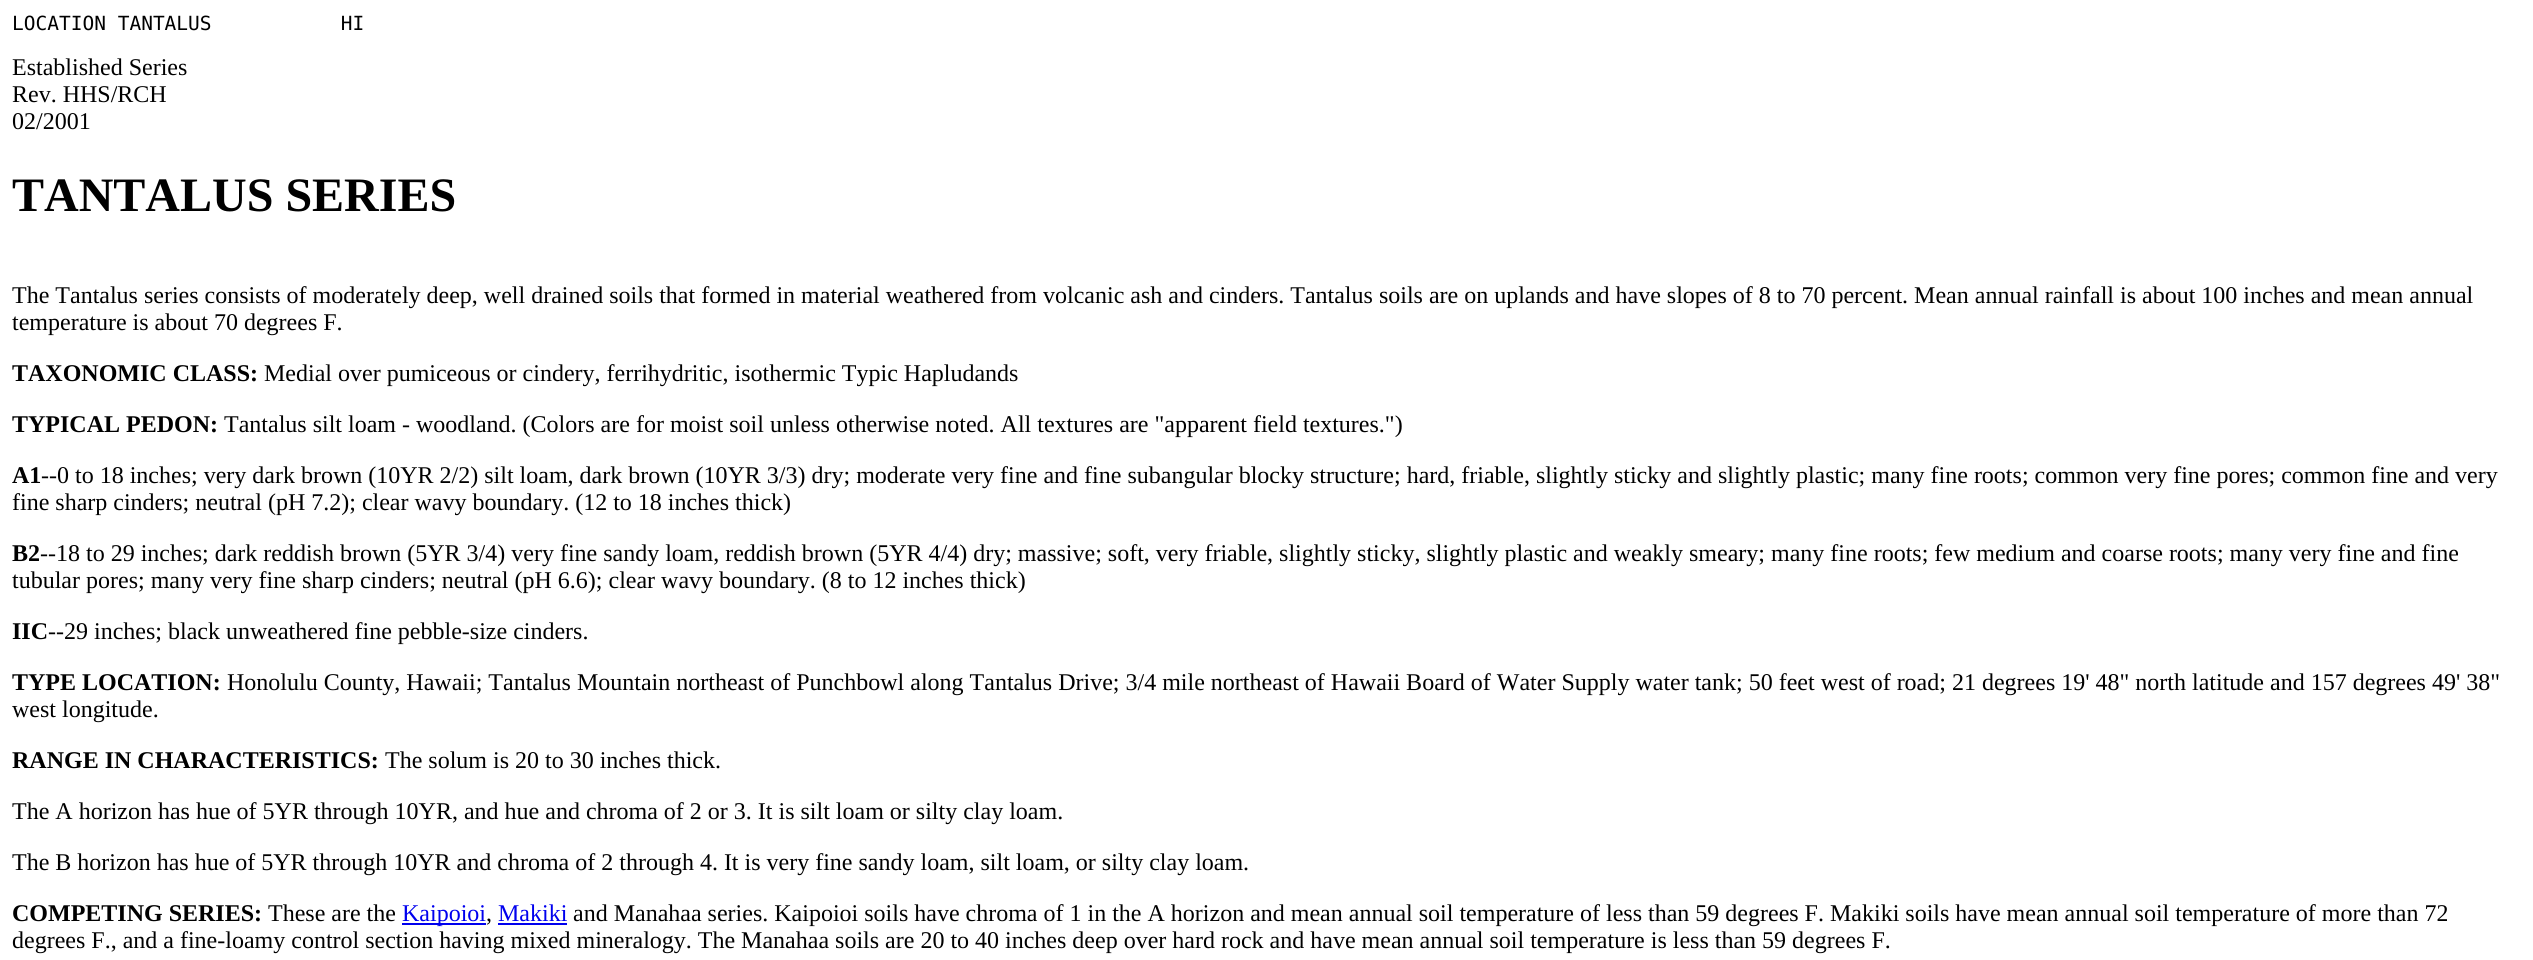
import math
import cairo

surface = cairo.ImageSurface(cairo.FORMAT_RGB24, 2533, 960)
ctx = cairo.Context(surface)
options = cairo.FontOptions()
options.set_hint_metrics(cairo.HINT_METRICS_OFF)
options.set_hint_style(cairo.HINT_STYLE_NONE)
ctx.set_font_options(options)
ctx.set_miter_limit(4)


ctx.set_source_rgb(1, 1, 1)
ctx.paint()
ctx.select_font_face("DejaVu Sans Mono")
ctx.set_font_size(19.5)
ctx.set_source_rgb(0, 0, 0)
ctx.move_to(12, 30)
ctx.show_text("LOCATION TANTALUS           HI")
ctx.select_font_face("Liberation Serif")
ctx.set_font_size(24)
ctx.move_to(12, 75)
ctx.show_text("Established Series")
ctx.move_to(12, 102)
ctx.show_text("Rev. HHS/RCH")
ctx.move_to(12, 129)
ctx.show_text("02/2001")
ctx.select_font_face("Liberation Serif", cairo.FONT_SLANT_NORMAL, cairo.FONT_WEIGHT_BOLD)
ctx.set_font_size(48)
ctx.move_to(12, 211)
ctx.show_text("TANTALUS SERIES")
ctx.select_font_face("Liberation Serif")
ctx.set_font_size(24)
ctx.move_to(12, 303)
ctx.show_text("The Tantalus series consists of moderately deep, well drained soils that formed in material weathered from volcanic ash and cinders. Tantalus soils are on uplands and have slopes of 8 to 70 percent. Mean annual rainfall is about 100 inches and mean annual")
ctx.move_to(12, 330)
ctx.show_text("temperature is about 70 degrees F.")
ctx.select_font_face("Liberation Serif", cairo.FONT_SLANT_NORMAL, cairo.FONT_WEIGHT_BOLD)
ctx.move_to(12, 381)
ctx.show_text("TAXONOMIC CLASS:")
ctx.select_font_face("Liberation Serif")
ctx.move_to(264, 381)
ctx.show_text("Medial over pumiceous or cindery, ferrihydritic, isothermic Typic Hapludands")
ctx.select_font_face("Liberation Serif", cairo.FONT_SLANT_NORMAL, cairo.FONT_WEIGHT_BOLD)
ctx.move_to(12, 432)
ctx.show_text("TYPICAL PEDON:")
ctx.select_font_face("Liberation Serif")
ctx.move_to(224, 432)
ctx.show_text("Tantalus silt loam - woodland. (Colors are for moist soil unless otherwise noted. All textures are \"apparent field textures.\")")
ctx.select_font_face("Liberation Serif", cairo.FONT_SLANT_NORMAL, cairo.FONT_WEIGHT_BOLD)
ctx.move_to(12, 483)
ctx.show_text("A1")
ctx.select_font_face("Liberation Serif")
ctx.move_to(41, 483)
ctx.show_text("--0 to 18 inches; very dark brown (10YR 2/2) silt loam, dark brown (10YR 3/3) dry; moderate very fine and fine subangular blocky structure; hard, friable, slightly sticky and slightly plastic; many fine roots; common very fine pores; common fine and very")
ctx.move_to(12, 510)
ctx.show_text("fine sharp cinders; neutral (pH 7.2); clear wavy boundary. (12 to 18 inches thick)")
ctx.select_font_face("Liberation Serif", cairo.FONT_SLANT_NORMAL, cairo.FONT_WEIGHT_BOLD)
ctx.move_to(12, 561)
ctx.show_text("B2")
ctx.select_font_face("Liberation Serif")
ctx.move_to(40, 561)
ctx.show_text("--18 to 29 inches; dark reddish brown (5YR 3/4) very fine sandy loam, reddish brown (5YR 4/4) dry; massive; soft, very friable, slightly sticky, slightly plastic and weakly smeary; many fine roots; few medium and coarse roots; many very fine and fine")
ctx.move_to(12, 588)
ctx.show_text("tubular pores; many very fine sharp cinders; neutral (pH 6.6); clear wavy boundary. (8 to 12 inches thick)")
ctx.select_font_face("Liberation Serif", cairo.FONT_SLANT_NORMAL, cairo.FONT_WEIGHT_BOLD)
ctx.move_to(12, 639)
ctx.show_text("IIC")
ctx.select_font_face("Liberation Serif")
ctx.move_to(48, 639)
ctx.show_text("--29 inches; black unweathered fine pebble-size cinders.")
ctx.select_font_face("Liberation Serif", cairo.FONT_SLANT_NORMAL, cairo.FONT_WEIGHT_BOLD)
ctx.move_to(12, 690)
ctx.show_text("TYPE LOCATION:")
ctx.select_font_face("Liberation Serif")
ctx.move_to(227, 690)
ctx.show_text("Honolulu County, Hawaii; Tantalus Mountain northeast of Punchbowl along Tantalus Drive; 3/4 mile northeast of Hawaii Board of Water Supply water tank; 50 feet west of road; 21 degrees 19' 48\" north latitude and 157 degrees 49' 38\"")
ctx.move_to(12, 717)
ctx.show_text("west longitude.")
ctx.select_font_face("Liberation Serif", cairo.FONT_SLANT_NORMAL, cairo.FONT_WEIGHT_BOLD)
ctx.move_to(12, 768)
ctx.show_text("RANGE IN CHARACTERISTICS:")
ctx.select_font_face("Liberation Serif")
ctx.move_to(385, 768)
ctx.show_text("The solum is 20 to 30 inches thick.")
ctx.move_to(12, 819)
ctx.show_text("The A horizon has hue of 5YR through 10YR, and hue and chroma of 2 or 3. It is silt loam or silty clay loam.")
ctx.move_to(12, 870)
ctx.show_text("The B horizon has hue of 5YR through 10YR and chroma of 2 through 4. It is very fine sandy loam, silt loam, or silty clay loam.")
ctx.select_font_face("Liberation Serif", cairo.FONT_SLANT_NORMAL, cairo.FONT_WEIGHT_BOLD)
ctx.move_to(12, 921)
ctx.show_text("COMPETING SERIES:")
ctx.select_font_face("Liberation Serif")
ctx.move_to(268, 921)
ctx.show_text("These are the")
ctx.set_source_rgb(0, 0, 0.933)
ctx.rectangle(402, 923, 84, 2)
ctx.fill()
ctx.move_to(402, 921)
ctx.show_text("Kaipoioi")
ctx.set_source_rgb(0, 0, 0)
ctx.move_to(486, 921)
ctx.show_text(",")
ctx.set_source_rgb(0, 0, 0.933)
ctx.move_to(498, 921)
ctx.show_text("Makiki")
ctx.rectangle(498, 923, 69, 2)
ctx.fill()
ctx.set_source_rgb(0, 0, 0)
ctx.move_to(573, 921)
ctx.show_text("and Manahaa series. Kaipoioi soils have chroma of 1 in the A horizon and mean annual soil temperature of less than 59 degrees F. Makiki soils have mean annual soil temperature of more than 72")
ctx.move_to(12, 948)
ctx.show_text("degrees F., and a fine-loamy control section having mixed mineralogy. The Manahaa soils are 20 to 40 inches deep over hard rock and have mean annual soil temperature is less than 59 degrees F.")
surface.write_to_png("page.png")
